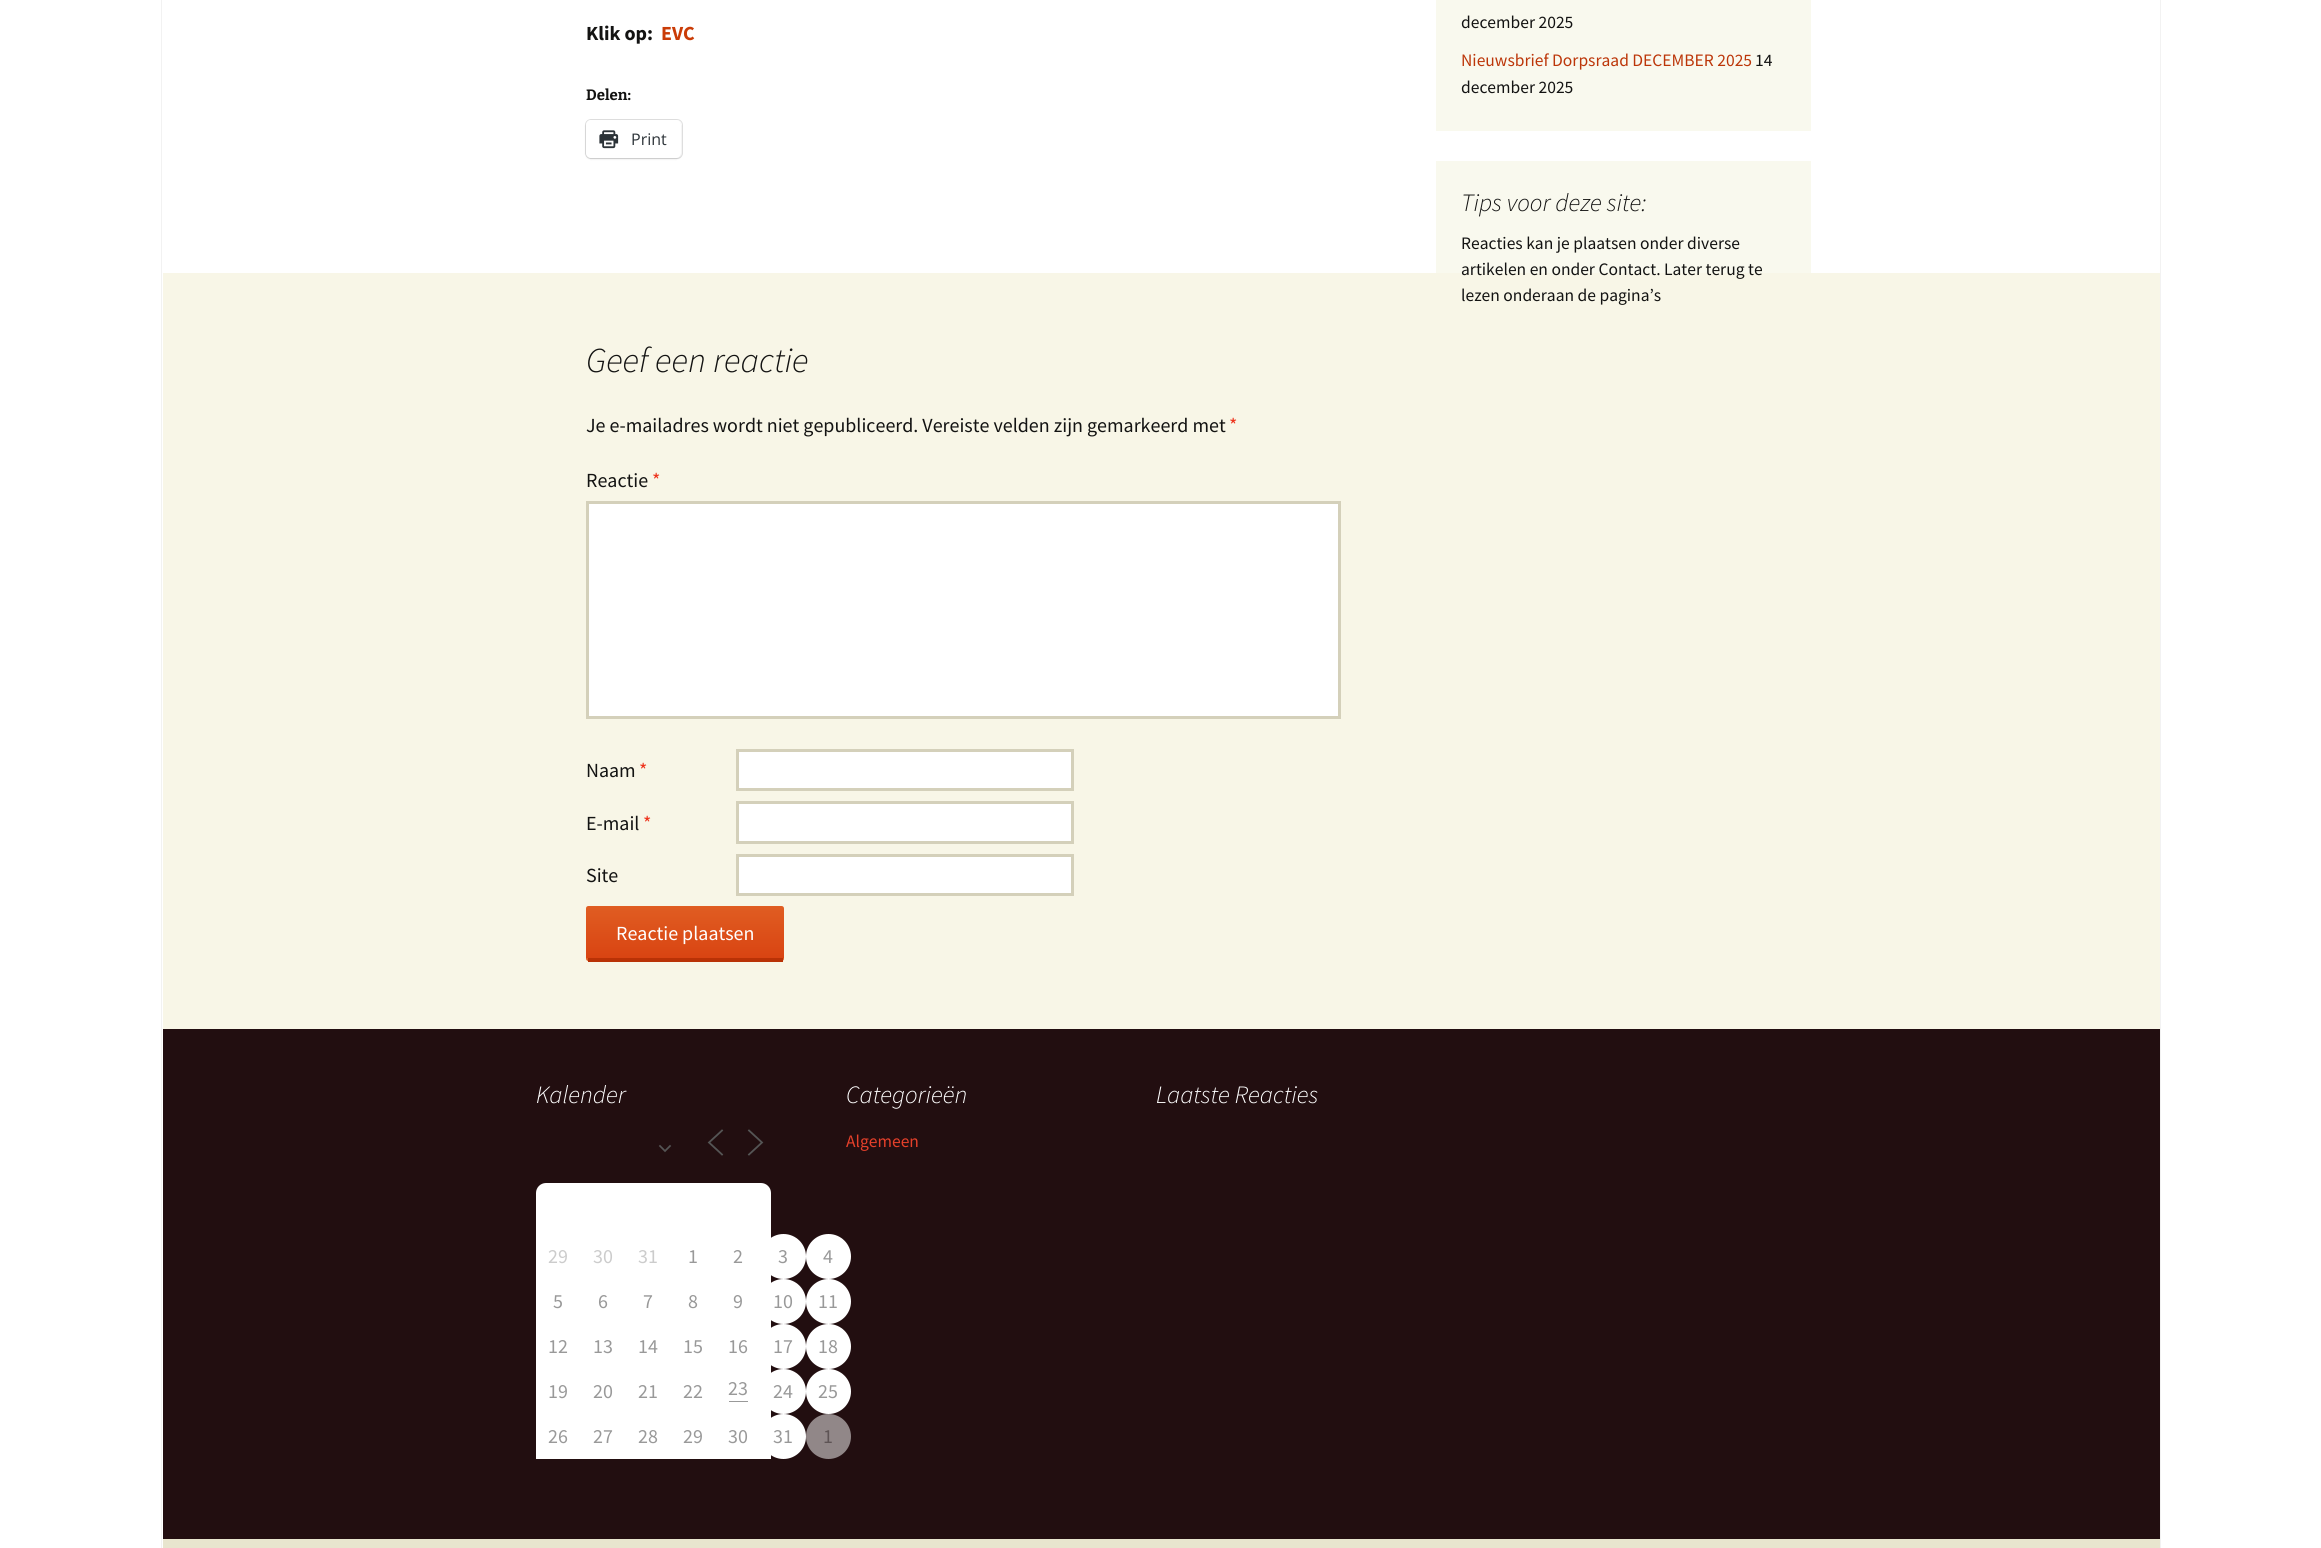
import math
import cairo

surface = cairo.ImageSurface(cairo.FORMAT_RGB24, 2321, 1548)
ctx = cairo.Context(surface)
options = cairo.FontOptions()
options.set_hint_metrics(cairo.HINT_METRICS_OFF)
options.set_hint_style(cairo.HINT_STYLE_NONE)
ctx.set_font_options(options)
ctx.set_miter_limit(4)


def round_rect(x, y, w, h, r):
    ctx.new_sub_path()
    for i, (u, v) in enumerate([(x + w - r, y + h - r), (x + r, y + h - r), (x + r, y + r), (x + w - r, y + r)]):
        ctx.arc(u, v, r, i * math.pi / 2, (i + 1) * math.pi / 2)
    ctx.close_path()


def shadow(x, y, w, h, r, blur, alpha):
    ctx.push_group_with_content(cairo.CONTENT_ALPHA)
    ctx.set_operator(cairo.OPERATOR_SOURCE)
    for i in range(15, -16, -2):
        e = blur * i / 6
        if min(w, h) + 2 * e > 0:
            ctx.set_source_rgba(0, 0, 0, alpha * math.erfc((i - 1) / 8.5) / 2)
            round_rect(x - e, y - e, w + 2 * e, h + 2 * e, max(0, min(r + e + blur * .6, min(w, h) / 2 + e)))
            ctx.fill()
    ctx.mask(ctx.pop_group())


def picture(path, x, y, w, h):
    ctx.save()
    ctx.set_source_surface(cairo.ImageSurface.create_from_png(path), x, y)
    ctx.rectangle(x, y, w, h)
    ctx.fill()
    ctx.restore()


ctx.set_source_rgb(1, 1, 1)
ctx.paint()
ctx.set_source_rgb(0.976, 0.973, 0.933)
ctx.rectangle(1436, 161, 375, 112)
ctx.fill()
ctx.set_source_rgb(0.949, 0.949, 0.949)
ctx.rectangle(2160, 0, 1, 1548)
ctx.fill()
ctx.rectangle(161, 0, 1, 1548)
ctx.fill()
ctx.select_font_face("Source Sans Pro", cairo.FONT_SLANT_NORMAL, cairo.FONT_WEIGHT_BOLD)
ctx.set_font_size(20)
ctx.set_source_rgb(0.078, 0.078, 0.071)
ctx.move_to(586, 40)
ctx.show_text("Klik op:")
ctx.set_source_rgb(0.792, 0.235, 0.031)
ctx.move_to(661, 40)
ctx.show_text("EVC")
ctx.select_font_face("Bitter Thin")
ctx.set_font_size(15)
ctx.set_source_rgb(0.078, 0.078, 0.071)
ctx.move_to(586, 100)
ctx.show_text("Delen:")
round_rect(585.5, 119.5, 97, 39, 5.5)
ctx.set_source_rgb(0.878, 0.878, 0.878)
ctx.set_line_width(1)
ctx.stroke()
ctx.set_source_rgb(0, 0, 0)
shadow(586, 121, 95, 38, 5, 1, 0.12)
ctx.set_source_rgb(1, 1, 1)
round_rect(586, 120, 95, 38, 5)
ctx.fill()
picture("img1.png", 599, 130, 20, 19)
ctx.select_font_face("Open Sans")
ctx.set_font_size(16)
ctx.set_source_rgb(0.173, 0.2, 0.22)
ctx.move_to(631, 145)
ctx.show_text("Print")
ctx.set_source_rgb(0.969, 0.961, 0.906)
ctx.rectangle(163, 273, 1997, 756)
ctx.fill()
ctx.select_font_face("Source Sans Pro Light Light", cairo.FONT_SLANT_ITALIC)
ctx.set_font_size(35)
ctx.set_source_rgb(0.078, 0.078, 0.071)
ctx.move_to(586, 372)
ctx.show_text("Geef een reactie")
ctx.select_font_face("Source Sans Pro")
ctx.set_font_size(20)
ctx.move_to(586, 432)
ctx.show_text("Je e-mailadres wordt niet gepubliceerd. Vereiste velden zijn gemarkeerd met")
ctx.set_source_rgb(0.929, 0.2, 0.11)
ctx.move_to(1229, 432)
ctx.show_text("*")
ctx.set_source_rgb(0.078, 0.078, 0.071)
ctx.move_to(586, 487)
ctx.show_text("Reactie")
ctx.set_source_rgb(0.929, 0.2, 0.11)
ctx.move_to(652, 487)
ctx.show_text("*")
ctx.set_source_rgb(1, 1, 1)
ctx.rectangle(587.5, 502.5, 752, 215)
ctx.fill_preserve()
ctx.set_source_rgb(0.831, 0.816, 0.729)
ctx.set_line_width(3)
ctx.stroke()
ctx.set_source_rgb(0.078, 0.078, 0.071)
ctx.move_to(586, 777)
ctx.show_text("Naam")
ctx.set_source_rgb(0.929, 0.2, 0.11)
ctx.move_to(639, 777)
ctx.show_text("*")
ctx.set_source_rgb(1, 1, 1)
ctx.rectangle(737.5, 750.5, 335, 39)
ctx.fill_preserve()
ctx.set_source_rgb(0.831, 0.816, 0.729)
ctx.stroke()
ctx.set_source_rgb(0.078, 0.078, 0.071)
ctx.move_to(586, 830)
ctx.show_text("E-mail")
ctx.set_source_rgb(0.929, 0.2, 0.11)
ctx.move_to(643, 830)
ctx.show_text("*")
ctx.set_source_rgb(1, 1, 1)
ctx.rectangle(737.5, 802.5, 335, 40)
ctx.fill_preserve()
ctx.set_source_rgb(0.831, 0.816, 0.729)
ctx.stroke()
ctx.set_source_rgb(0.078, 0.078, 0.071)
ctx.move_to(586, 882)
ctx.show_text("Site")
ctx.set_source_rgb(1, 1, 1)
ctx.rectangle(737.5, 855.5, 335, 39)
ctx.fill_preserve()
ctx.set_source_rgb(0.831, 0.816, 0.729)
ctx.stroke()
gradient = cairo.LinearGradient(685, 906, 685, 958)
gradient.add_color_stop_rgba(0, 0.878, 0.365, 0.133, 1)
gradient.add_color_stop_rgba(1, 0.851, 0.267, 0.071, 1)
ctx.set_source(gradient)
ctx.new_path()
ctx.move_to(588.5, 906)
ctx.line_to(781.5, 906)
ctx.curve_to(783, 906, 784, 907, 784, 908.5)
ctx.line_to(784, 958)
ctx.line_to(586, 958)
ctx.line_to(586, 908.5)
ctx.curve_to(586, 907, 587, 906, 588.5, 906)
ctx.close_path()
ctx.fill()
gradient = cairo.LinearGradient(685, 958, 685, 1009)
gradient.add_color_stop_rgba(0, 0.878, 0.365, 0.133, 1)
gradient.add_color_stop_rgba(1, 0.851, 0.267, 0.071, 1)
ctx.set_source(gradient)
ctx.new_path()
ctx.move_to(586, 958)
ctx.line_to(784, 958)
ctx.line_to(784, 958.5)
ctx.curve_to(784, 960, 783, 961, 781.5, 961)
ctx.line_to(588.5, 961)
ctx.curve_to(587, 961, 586, 960, 586, 958.5)
ctx.close_path()
ctx.fill()
ctx.set_source_rgb(0.725, 0.196, 0.027)
ctx.rectangle(588, 958, 195, 4)
ctx.fill()
ctx.set_source_rgb(1, 1, 1)
ctx.move_to(616, 940)
ctx.show_text("Reactie plaatsen")
ctx.set_source_rgb(0.976, 0.973, 0.933)
ctx.rectangle(1436, 0, 375, 131)
ctx.fill()
ctx.set_font_size(17.5)
ctx.set_source_rgb(0.078, 0.078, 0.071)
ctx.move_to(1461, 28)
ctx.show_text("december 2025")
ctx.set_source_rgb(0.737, 0.212, 0.039)
ctx.move_to(1461, 66)
ctx.show_text("Nieuwsbrief Dorpsraad DECEMBER 2025")
ctx.set_source_rgb(0.078, 0.078, 0.071)
ctx.move_to(1755, 66)
ctx.show_text("14")
ctx.move_to(1461, 93)
ctx.show_text("december 2025")
ctx.select_font_face("Source Sans Pro Light Light", cairo.FONT_SLANT_ITALIC)
ctx.set_font_size(25)
ctx.move_to(1461, 211)
ctx.show_text("Tips voor deze site:")
ctx.select_font_face("Source Sans Pro")
ctx.set_font_size(17.5)
ctx.move_to(1461, 249)
ctx.show_text("Reacties kan je plaatsen onder diverse")
ctx.move_to(1461, 275)
ctx.show_text("artikelen en onder Contact. Later terug te")
ctx.move_to(1461, 301)
ctx.show_text("lezen onderaan de pagina’s")
ctx.set_source_rgb(0.91, 0.898, 0.808)
ctx.rectangle(163, 1539, 1997, 9)
ctx.fill()
ctx.set_source_rgb(0.133, 0.055, 0.063)
ctx.rectangle(163, 1029, 1997, 510)
ctx.fill()
ctx.select_font_face("Source Sans Pro Light Light", cairo.FONT_SLANT_ITALIC)
ctx.set_font_size(25)
ctx.set_source_rgb(1, 1, 1)
ctx.move_to(536, 1103)
ctx.show_text("Kalender")
ctx.new_path()
ctx.move_to(660, 1146)
ctx.line_to(665, 1151)
ctx.line_to(670, 1146)
ctx.set_source_rgb(0.333, 0.333, 0.333)
ctx.set_line_width(1.7)
ctx.set_line_cap(cairo.LINE_CAP_SQUARE)
ctx.stroke()
ctx.new_path()
ctx.move_to(722, 1154.5)
ctx.line_to(709, 1142.5)
ctx.line_to(722, 1130.5)
ctx.move_to(749, 1154.5)
ctx.line_to(762, 1142.5)
ctx.line_to(749, 1130.5)
ctx.set_line_width(1.8)
ctx.stroke()
ctx.set_source_rgb(1, 1, 1)
ctx.new_path()
ctx.move_to(546, 1183)
ctx.line_to(761, 1183)
ctx.curve_to(766.5, 1183, 771, 1187.5, 771, 1193)
ctx.line_to(771, 1234)
ctx.line_to(536, 1234)
ctx.line_to(536, 1193)
ctx.curve_to(536, 1187.5, 540.5, 1183, 546, 1183)
ctx.close_path()
ctx.fill()
ctx.rectangle(536, 1234, 235, 225)
ctx.fill()
ctx.select_font_face("Source Sans Pro")
ctx.set_font_size(20)
ctx.set_source_rgb(0.8, 0.8, 0.8)
ctx.move_to(548, 1263)
ctx.show_text("29")
ctx.move_to(593, 1263)
ctx.show_text("30")
ctx.move_to(638, 1263)
ctx.show_text("31")
ctx.set_source_rgb(0.6, 0.6, 0.6)
ctx.move_to(688, 1263)
ctx.show_text("1")
ctx.move_to(733, 1263)
ctx.show_text("2")
ctx.set_source_rgb(1, 1, 1)
ctx.new_path()
ctx.arc(783.5, 1256.5, 22.5, 0, 2 * math.pi)
ctx.fill()
ctx.set_source_rgb(0.6, 0.6, 0.6)
ctx.move_to(778, 1263)
ctx.show_text("3")
ctx.set_source_rgb(1, 1, 1)
ctx.new_path()
ctx.arc(828.5, 1256.5, 22.5, 0, 2 * math.pi)
ctx.fill()
ctx.set_source_rgb(0.6, 0.6, 0.6)
ctx.move_to(823, 1263)
ctx.show_text("4")
ctx.move_to(553, 1308)
ctx.show_text("5")
ctx.move_to(598, 1308)
ctx.show_text("6")
ctx.move_to(643, 1308)
ctx.show_text("7")
ctx.move_to(688, 1308)
ctx.show_text("8")
ctx.move_to(733, 1308)
ctx.show_text("9")
ctx.set_source_rgb(1, 1, 1)
ctx.new_path()
ctx.arc(783.5, 1301.5, 22.5, 0, 2 * math.pi)
ctx.fill()
ctx.set_source_rgb(0.6, 0.6, 0.6)
ctx.move_to(773, 1308)
ctx.show_text("10")
ctx.set_source_rgb(1, 1, 1)
ctx.new_path()
ctx.arc(828.5, 1301.5, 22.5, 0, 2 * math.pi)
ctx.fill()
ctx.set_source_rgb(0.6, 0.6, 0.6)
ctx.move_to(818, 1308)
ctx.show_text("11")
ctx.move_to(548, 1353)
ctx.show_text("12")
ctx.move_to(593, 1353)
ctx.show_text("13")
ctx.move_to(638, 1353)
ctx.show_text("14")
ctx.move_to(683, 1353)
ctx.show_text("15")
ctx.move_to(728, 1353)
ctx.show_text("16")
ctx.set_source_rgb(1, 1, 1)
ctx.new_path()
ctx.arc(783.5, 1346.5, 22.5, 0, 2 * math.pi)
ctx.fill()
ctx.set_source_rgb(0.6, 0.6, 0.6)
ctx.move_to(773, 1353)
ctx.show_text("17")
ctx.set_source_rgb(1, 1, 1)
ctx.new_path()
ctx.arc(828.5, 1346.5, 22.5, 0, 2 * math.pi)
ctx.fill()
ctx.set_source_rgb(0.6, 0.6, 0.6)
ctx.move_to(818, 1353)
ctx.show_text("18")
ctx.move_to(548, 1398)
ctx.show_text("19")
ctx.move_to(593, 1398)
ctx.show_text("20")
ctx.move_to(638, 1398)
ctx.show_text("21")
ctx.move_to(683, 1398)
ctx.show_text("22")
ctx.move_to(728, 1395)
ctx.show_text("23")
ctx.rectangle(729, 1401, 19, 1)
ctx.fill()
ctx.set_source_rgb(1, 1, 1)
ctx.arc(783.5, 1391.5, 22.5, 0, 2 * math.pi)
ctx.fill()
ctx.set_source_rgb(0.6, 0.6, 0.6)
ctx.move_to(773, 1398)
ctx.show_text("24")
ctx.set_source_rgb(1, 1, 1)
ctx.new_path()
ctx.arc(828.5, 1391.5, 22.5, 0, 2 * math.pi)
ctx.fill()
ctx.set_source_rgb(0.6, 0.6, 0.6)
ctx.move_to(818, 1398)
ctx.show_text("25")
ctx.move_to(548, 1443)
ctx.show_text("26")
ctx.move_to(593, 1443)
ctx.show_text("27")
ctx.move_to(638, 1443)
ctx.show_text("28")
ctx.move_to(683, 1443)
ctx.show_text("29")
ctx.move_to(728, 1443)
ctx.show_text("30")
ctx.set_source_rgb(1, 1, 1)
ctx.new_path()
ctx.arc(783.5, 1436.5, 22.5, 0, 2 * math.pi)
ctx.fill()
ctx.set_source_rgb(0.6, 0.6, 0.6)
ctx.move_to(773, 1443)
ctx.show_text("31")
ctx.set_source_rgb(0.569, 0.529, 0.533)
ctx.new_path()
ctx.arc(828.5, 1436.5, 22.5, 0, 2 * math.pi)
ctx.fill()
ctx.set_source_rgb(0.369, 0.329, 0.333)
ctx.move_to(823, 1443)
ctx.show_text("1")
ctx.select_font_face("Source Sans Pro Light Light", cairo.FONT_SLANT_ITALIC)
ctx.set_font_size(25)
ctx.set_source_rgb(1, 1, 1)
ctx.move_to(846, 1103)
ctx.show_text("Categorieën")
ctx.select_font_face("Source Sans Pro")
ctx.set_font_size(17.5)
ctx.set_source_rgb(0.902, 0.251, 0.165)
ctx.move_to(846, 1147)
ctx.show_text("Algemeen")
ctx.select_font_face("Source Sans Pro Light Light", cairo.FONT_SLANT_ITALIC)
ctx.set_font_size(25)
ctx.set_source_rgb(1, 1, 1)
ctx.move_to(1156, 1103)
ctx.show_text("Laatste Reacties")
surface.write_to_png("page.png")
